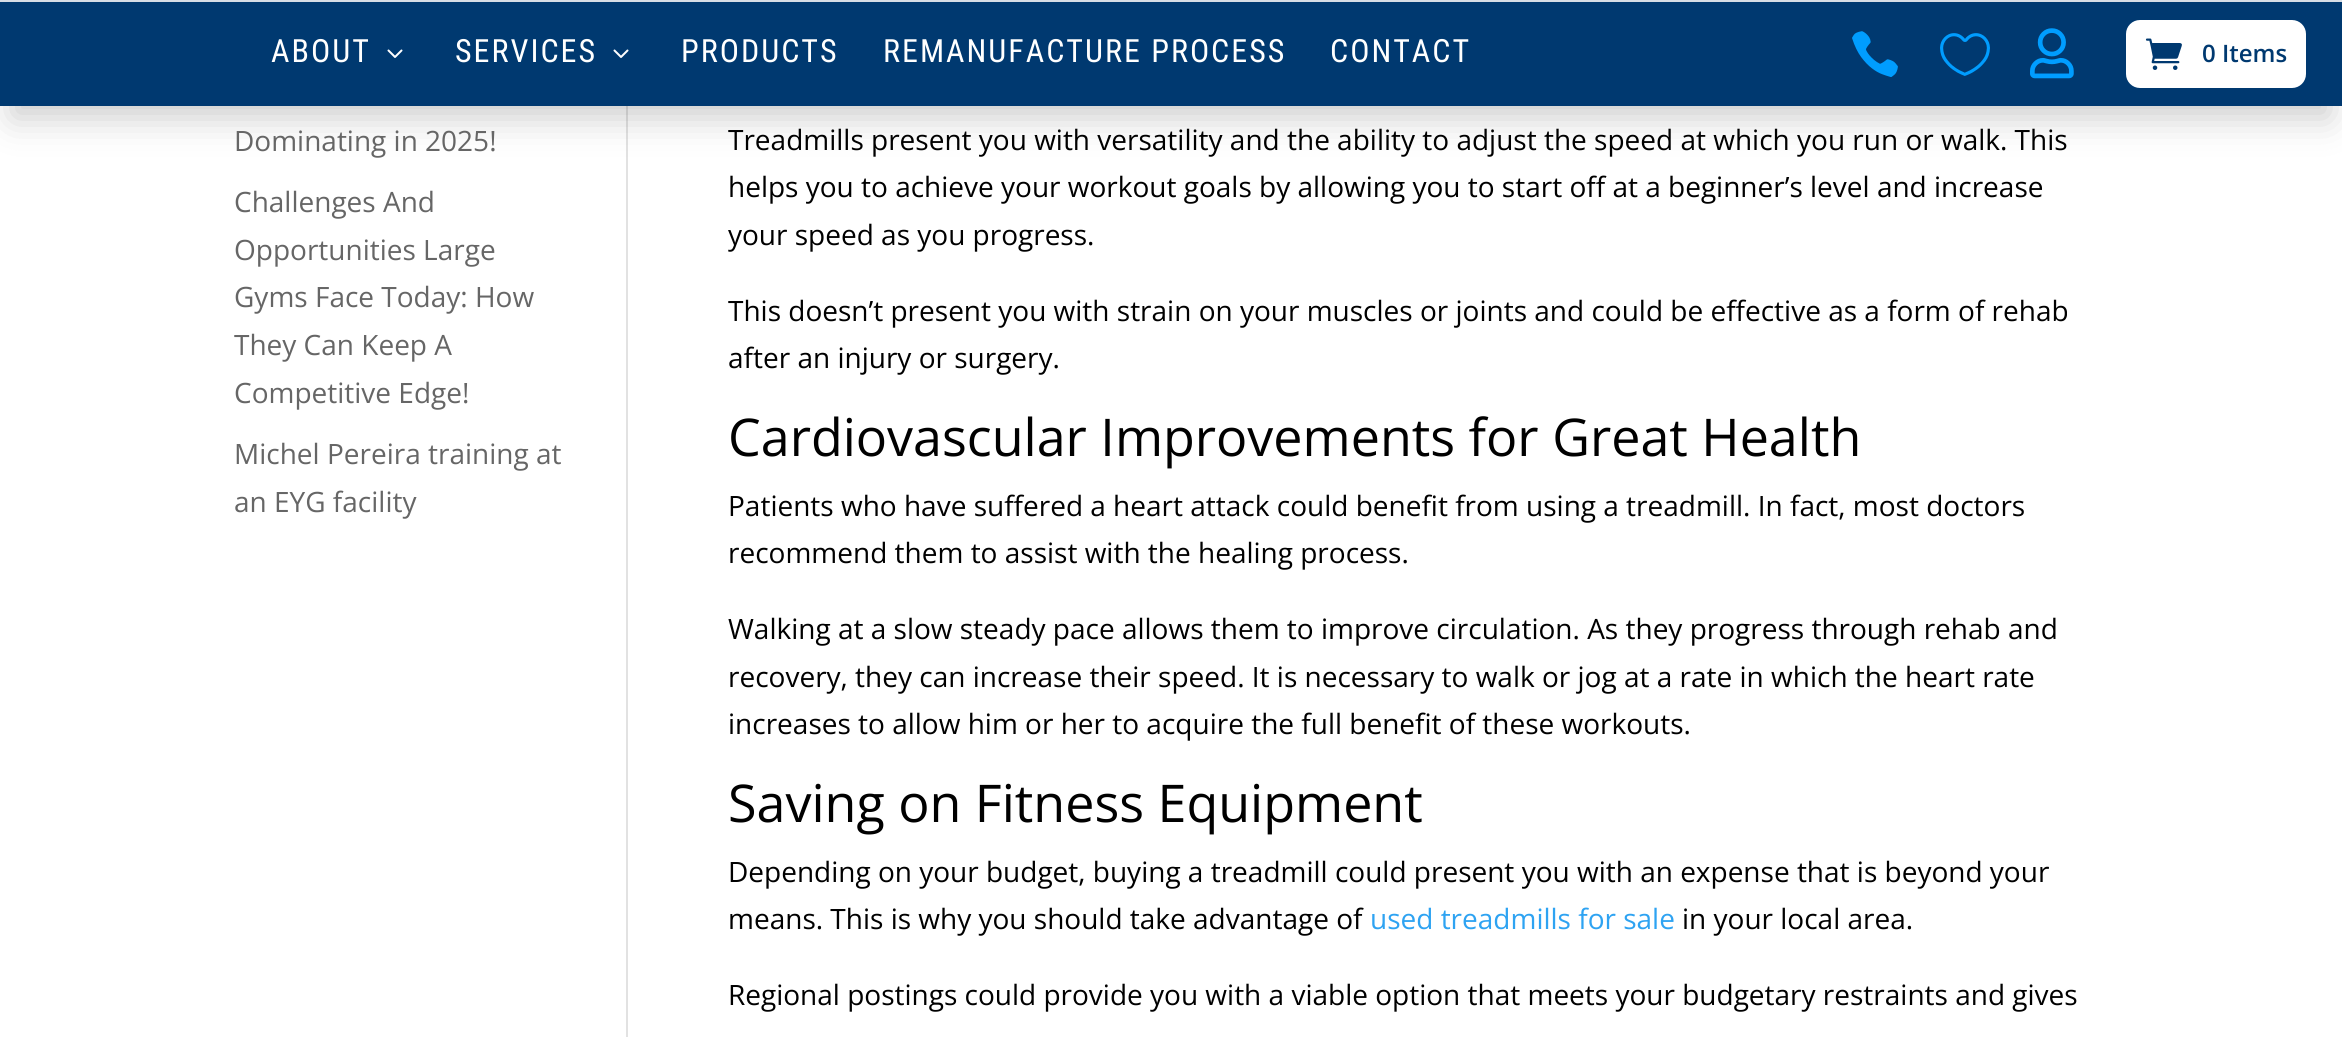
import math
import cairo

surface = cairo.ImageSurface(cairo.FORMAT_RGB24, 2342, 1037)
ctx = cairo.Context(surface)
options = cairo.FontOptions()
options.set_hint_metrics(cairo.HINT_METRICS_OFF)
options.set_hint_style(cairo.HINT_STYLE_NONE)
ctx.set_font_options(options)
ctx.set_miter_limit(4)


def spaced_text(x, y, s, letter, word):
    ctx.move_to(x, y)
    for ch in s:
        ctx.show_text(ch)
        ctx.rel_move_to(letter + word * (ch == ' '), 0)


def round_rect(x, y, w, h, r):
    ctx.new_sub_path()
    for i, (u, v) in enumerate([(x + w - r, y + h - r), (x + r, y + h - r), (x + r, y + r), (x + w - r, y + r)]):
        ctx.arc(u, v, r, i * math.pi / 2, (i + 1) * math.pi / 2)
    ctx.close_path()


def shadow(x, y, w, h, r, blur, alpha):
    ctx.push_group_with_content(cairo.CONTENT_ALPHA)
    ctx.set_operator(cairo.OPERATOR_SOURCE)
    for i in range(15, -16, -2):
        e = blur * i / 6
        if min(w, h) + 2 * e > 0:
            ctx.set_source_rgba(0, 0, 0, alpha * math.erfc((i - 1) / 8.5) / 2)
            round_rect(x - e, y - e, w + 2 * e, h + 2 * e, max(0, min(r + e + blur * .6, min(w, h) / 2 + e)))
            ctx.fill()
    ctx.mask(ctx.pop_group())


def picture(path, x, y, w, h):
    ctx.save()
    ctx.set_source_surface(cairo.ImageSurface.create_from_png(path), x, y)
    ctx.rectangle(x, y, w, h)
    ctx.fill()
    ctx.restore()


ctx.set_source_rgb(1, 1, 1)
ctx.paint()
ctx.set_source_rgb(0.886, 0.886, 0.886)
ctx.rectangle(626, 106, 2, 931)
ctx.fill()
ctx.set_source_rgb(0, 0, 0)
shadow(12, 36, 2318, 82, 0, 18, 0.2)
ctx.set_source_rgb(0, 0.224, 0.439)
ctx.rectangle(0, 2, 2342, 104)
ctx.fill()
ctx.set_source_rgb(0.843, 0.867, 0.898)
ctx.rectangle(0, 0, 2342, 2)
ctx.fill()
ctx.select_font_face("Roboto Condensed")
ctx.set_font_size(32)
ctx.set_source_rgb(1, 1, 1)
spaced_text(271, 62, "ABOUT", 2, 0)
picture("img1.png", 387, 49, 16, 9)
spaced_text(455, 62, "SERVICES", 2, 0)
picture("img1.png", 613, 49, 16, 9)
spaced_text(681, 62, "PRODUCTS", 2, 0)
spaced_text(883, 62, "REMANUFACTURE PROCESS", 2, 0)
spaced_text(1330, 62, "CONTACT", 2, 0)
picture("img2.png", 1852, 31, 46, 46)
picture("img3.png", 1940, 33, 50, 43)
picture("img4.png", 2030, 28, 44, 51)
round_rect(2126, 20, 180, 68, 14)
ctx.fill()
picture("img5.png", 2145, 38, 37, 32)
ctx.select_font_face("Open Sans SemiBold")
ctx.set_font_size(24)
ctx.set_source_rgb(0, 0.224, 0.439)
ctx.move_to(2202, 62)
ctx.show_text("0 Items")
ctx.select_font_face("Open Sans")
ctx.set_font_size(28)
ctx.set_source_rgb(0.4, 0.4, 0.4)
ctx.move_to(234, 151)
ctx.show_text("Dominating in 2025!")
ctx.move_to(234, 212)
ctx.show_text("Challenges And")
ctx.move_to(234, 260)
ctx.show_text("Opportunities Large")
ctx.move_to(234, 307)
ctx.show_text("Gyms Face Today: How")
ctx.move_to(234, 355)
ctx.show_text("They Can Keep A")
ctx.move_to(234, 403)
ctx.show_text("Competitive Edge!")
ctx.move_to(234, 464)
ctx.show_text("Michel Pereira training at")
ctx.move_to(234, 512)
ctx.show_text("an EYG facility")
ctx.set_source_rgb(0, 0, 0)
ctx.move_to(728, 150)
ctx.show_text("Treadmills present you with versatility and the ability to adjust the speed at which you run or walk. This")
ctx.move_to(728, 197)
ctx.show_text("helps you to achieve your workout goals by allowing you to start off at a beginner’s level and increase")
ctx.move_to(728, 245)
ctx.show_text("your speed as you progress.")
ctx.move_to(728, 321)
ctx.show_text("This doesn’t present you with strain on your muscles or joints and could be effective as a form of rehab")
ctx.move_to(728, 368)
ctx.show_text("after an injury or surgery.")
ctx.set_font_size(52)
ctx.move_to(728, 456)
ctx.show_text("Cardiovascular Improvements for Great Health")
ctx.set_font_size(28)
ctx.move_to(728, 516)
ctx.show_text("Patients who have suffered a heart attack could benefit from using a treadmill. In fact, most doctors")
ctx.move_to(728, 563)
ctx.show_text("recommend them to assist with the healing process.")
ctx.move_to(728, 639)
ctx.show_text("Walking at a slow steady pace allows them to improve circulation. As they progress through rehab and")
ctx.move_to(728, 687)
ctx.show_text("recovery, they can increase their speed. It is necessary to walk or jog at a rate in which the heart rate")
ctx.move_to(728, 734)
ctx.show_text("increases to allow him or her to acquire the full benefit of these workouts.")
ctx.set_font_size(52)
ctx.move_to(728, 822)
ctx.show_text("Saving on Fitness Equipment")
ctx.set_font_size(28)
ctx.move_to(728, 882)
ctx.show_text("Depending on your budget, buying a treadmill could present you with an expense that is beyond your")
ctx.move_to(728, 929)
ctx.show_text("means. This is why you should take advantage of")
ctx.set_source_rgb(0.18, 0.639, 0.949)
ctx.move_to(1370, 929)
ctx.show_text("used treadmills for sale")
ctx.set_source_rgb(0, 0, 0)
ctx.move_to(1682, 929)
ctx.show_text("in your local area.")
ctx.move_to(728, 1005)
ctx.show_text("Regional postings could provide you with a viable option that meets your budgetary restraints and gives")
surface.write_to_png("page.png")
